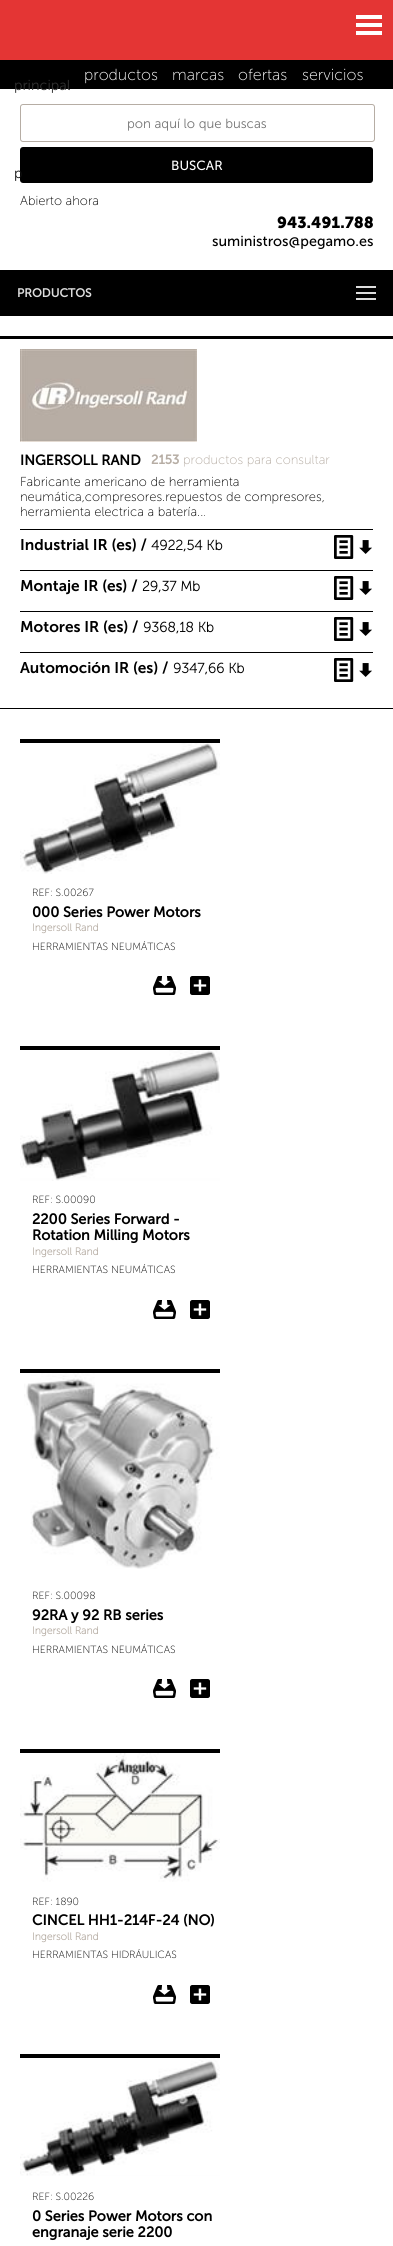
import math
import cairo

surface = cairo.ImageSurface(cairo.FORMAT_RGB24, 393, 2246)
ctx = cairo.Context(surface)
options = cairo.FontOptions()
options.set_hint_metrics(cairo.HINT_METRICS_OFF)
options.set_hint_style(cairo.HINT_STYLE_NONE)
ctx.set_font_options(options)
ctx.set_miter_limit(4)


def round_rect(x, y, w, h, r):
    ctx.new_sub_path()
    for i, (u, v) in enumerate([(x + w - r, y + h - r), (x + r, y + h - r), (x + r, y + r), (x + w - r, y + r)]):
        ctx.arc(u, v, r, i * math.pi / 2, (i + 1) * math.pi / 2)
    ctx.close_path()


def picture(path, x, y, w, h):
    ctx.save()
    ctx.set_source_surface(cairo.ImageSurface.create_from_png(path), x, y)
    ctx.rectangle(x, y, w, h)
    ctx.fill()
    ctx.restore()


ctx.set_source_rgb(0, 0, 0)
ctx.paint()
ctx.select_font_face("Museo Sans ExtraLight")
ctx.set_font_size(16)
ctx.set_source_rgb(1, 1, 1)
ctx.move_to(84, 80)
ctx.show_text("productos")
ctx.move_to(172, 80)
ctx.show_text("marcas")
ctx.move_to(238, 80)
ctx.show_text("ofertas")
ctx.move_to(302, 80)
ctx.show_text("servicios")
ctx.set_source_rgb(0.894, 0.208, 0.204)
ctx.rectangle(0, 0, 393, 60)
ctx.fill()
ctx.set_source_rgb(1, 1, 1)
ctx.rectangle(356, 31, 26, 4)
ctx.fill()
ctx.rectangle(356, 23, 26, 4)
ctx.fill()
ctx.rectangle(356, 15, 26, 4)
ctx.fill()
ctx.rectangle(0, 89, 393, 2157)
ctx.fill()
ctx.select_font_face("Museo Sans Light")
ctx.set_font_size(14.4)
ctx.set_source_rgb(0.188, 0.188, 0.188)
ctx.move_to(14, 90)
ctx.show_text("principal")
ctx.set_source_rgb(0, 0, 0)
round_rect(20, 147, 353, 36, 3)
ctx.fill()
ctx.set_source_rgb(0.063, 0.063, 0.063)
ctx.move_to(14, 178)
ctx.show_text("p")
round_rect(20.5, 104.5, 354, 37, 2.5)
ctx.set_source_rgb(0.714, 0.678, 0.643)
ctx.set_line_width(1)
ctx.stroke()
ctx.set_font_size(13.25)
ctx.set_source_rgb(0.459, 0.459, 0.459)
ctx.move_to(127, 128)
ctx.show_text("pon aquí lo que buscas")
ctx.select_font_face("Museo Sans")
ctx.set_source_rgb(1, 1, 1)
ctx.move_to(171, 170)
ctx.show_text("BUSCAR")
ctx.select_font_face("Museo Sans ExtraLight")
ctx.set_font_size(13)
ctx.set_source_rgb(0, 0, 0)
ctx.move_to(20, 205)
ctx.show_text("Abierto ahora")
ctx.select_font_face("Museo Sans", cairo.FONT_SLANT_NORMAL, cairo.FONT_WEIGHT_BOLD)
ctx.set_font_size(16)
ctx.move_to(277, 228)
ctx.show_text("943.491.788")
ctx.select_font_face("Museo Sans")
ctx.set_font_size(14.4)
ctx.move_to(212, 246)
ctx.show_text("suministros@pegamo.es")
ctx.rectangle(0, 270, 393, 46)
ctx.fill()
ctx.set_source_rgb(0.867, 0.867, 0.867)
ctx.rectangle(356, 286, 20, 2)
ctx.fill()
ctx.select_font_face("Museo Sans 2", cairo.FONT_SLANT_NORMAL, cairo.FONT_WEIGHT_BOLD)
ctx.set_font_size(12)
ctx.move_to(17, 297)
ctx.show_text("PRODUCTOS")
ctx.rectangle(356, 292, 20, 2)
ctx.fill()
ctx.rectangle(356, 298, 20, 2)
ctx.fill()
ctx.set_source_rgb(0, 0, 0)
ctx.rectangle(0, 336, 393, 3)
ctx.fill()
ctx.rectangle(0, 708, 393, 1)
ctx.fill()
picture("img1.png", 20, 349, 177, 93)
ctx.set_font_size(14.25)
ctx.move_to(20, 465)
ctx.show_text("INGERSOLL RAND")
ctx.set_font_size(13)
ctx.set_source_rgb(0.714, 0.678, 0.643)
ctx.move_to(151, 464)
ctx.show_text("2153")
ctx.select_font_face("Museo Sans ExtraLight")
ctx.move_to(183, 464)
ctx.show_text("productos para consultar")
ctx.set_source_rgb(0, 0, 0)
ctx.move_to(20, 486)
ctx.show_text("Fabricante americano de herramienta")
ctx.move_to(20, 501)
ctx.show_text("neumática,compresores.repuestos de compresores,")
ctx.move_to(20, 516)
ctx.show_text("herramienta electrica a batería...")
ctx.rectangle(20, 529, 353, 1)
ctx.fill()
picture("img2.png", 334, 535, 38, 24)
ctx.select_font_face("Museo Sans SemiBold")
ctx.set_font_size(15.5)
ctx.move_to(20, 550)
ctx.show_text("Industrial IR (es) /")
ctx.select_font_face("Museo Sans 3", cairo.FONT_SLANT_NORMAL, cairo.FONT_WEIGHT_BOLD)
ctx.set_font_size(14)
ctx.move_to(151, 550)
ctx.show_text("4922,54 Kb")
ctx.rectangle(20, 570, 353, 1)
ctx.fill()
picture("img2.png", 334, 576, 38, 24)
ctx.select_font_face("Museo Sans SemiBold")
ctx.set_font_size(15.5)
ctx.move_to(20, 591)
ctx.show_text("Montaje IR (es) /")
ctx.select_font_face("Museo Sans 3", cairo.FONT_SLANT_NORMAL, cairo.FONT_WEIGHT_BOLD)
ctx.set_font_size(14)
ctx.move_to(142, 591)
ctx.show_text("29,37 Mb")
ctx.rectangle(20, 611, 353, 1)
ctx.fill()
picture("img2.png", 334, 617, 38, 24)
ctx.select_font_face("Museo Sans SemiBold")
ctx.set_font_size(15.5)
ctx.move_to(20, 632)
ctx.show_text("Motores IR (es) /")
ctx.select_font_face("Museo Sans 3", cairo.FONT_SLANT_NORMAL, cairo.FONT_WEIGHT_BOLD)
ctx.set_font_size(14)
ctx.move_to(143, 632)
ctx.show_text("9368,18 Kb")
ctx.rectangle(20, 652, 353, 1)
ctx.fill()
picture("img2.png", 334, 658, 38, 24)
ctx.select_font_face("Museo Sans SemiBold")
ctx.set_font_size(15.5)
ctx.move_to(20, 673)
ctx.show_text("Automoción IR (es) /")
ctx.select_font_face("Museo Sans 3", cairo.FONT_SLANT_NORMAL, cairo.FONT_WEIGHT_BOLD)
ctx.set_font_size(14)
ctx.move_to(173, 673)
ctx.show_text("9347,66 Kb")
ctx.rectangle(20, 739, 200, 4)
ctx.fill()
picture("img3.png", 20, 743, 200, 131)
ctx.select_font_face("Museo Sans ExtraLight")
ctx.set_font_size(10.4)
ctx.move_to(32, 896)
ctx.show_text("REF: S.00267")
ctx.select_font_face("Museo Sans 2", cairo.FONT_SLANT_NORMAL, cairo.FONT_WEIGHT_BOLD)
ctx.set_font_size(14.5)
ctx.move_to(32, 917)
ctx.show_text("000 Series Power Motors")
ctx.select_font_face("Museo Sans 3", cairo.FONT_SLANT_NORMAL, cairo.FONT_WEIGHT_BOLD)
ctx.set_font_size(10.4)
ctx.set_source_rgb(0.714, 0.678, 0.643)
ctx.move_to(32, 931)
ctx.show_text("Ingersoll Rand")
ctx.select_font_face("Museo Sans ExtraLight")
ctx.set_source_rgb(0, 0, 0)
ctx.move_to(32, 950)
ctx.show_text("HERRAMIENTAS NEUMÁTICAS")
picture("img4.png", 153, 976, 23, 19)
picture("img5.png", 190, 976, 20, 19)
ctx.rectangle(20, 1046, 200, 4)
ctx.fill()
picture("img6.png", 20, 1050, 200, 131)
ctx.move_to(32, 1203)
ctx.show_text("REF: S.00090")
ctx.select_font_face("Museo Sans 2", cairo.FONT_SLANT_NORMAL, cairo.FONT_WEIGHT_BOLD)
ctx.set_font_size(14.5)
ctx.move_to(32, 1224)
ctx.show_text("2200 Series Forward -")
ctx.move_to(32, 1240)
ctx.show_text("Rotation Milling Motors")
ctx.select_font_face("Museo Sans 3", cairo.FONT_SLANT_NORMAL, cairo.FONT_WEIGHT_BOLD)
ctx.set_font_size(10.4)
ctx.set_source_rgb(0.714, 0.678, 0.643)
ctx.move_to(32, 1255)
ctx.show_text("Ingersoll Rand")
ctx.select_font_face("Museo Sans ExtraLight")
ctx.set_source_rgb(0, 0, 0)
ctx.move_to(32, 1273)
ctx.show_text("HERRAMIENTAS NEUMÁTICAS")
picture("img4.png", 153, 1300, 23, 19)
picture("img5.png", 190, 1300, 20, 19)
ctx.rectangle(20, 1369, 200, 4)
ctx.fill()
picture("img7.png", 24, 1373, 196, 196)
ctx.move_to(32, 1599)
ctx.show_text("REF: S.00098")
ctx.select_font_face("Museo Sans 2", cairo.FONT_SLANT_NORMAL, cairo.FONT_WEIGHT_BOLD)
ctx.set_font_size(14.5)
ctx.move_to(32, 1620)
ctx.show_text("92RA y 92 RB series")
ctx.select_font_face("Museo Sans 3", cairo.FONT_SLANT_NORMAL, cairo.FONT_WEIGHT_BOLD)
ctx.set_font_size(10.4)
ctx.set_source_rgb(0.714, 0.678, 0.643)
ctx.move_to(32, 1634)
ctx.show_text("Ingersoll Rand")
ctx.select_font_face("Museo Sans ExtraLight")
ctx.set_source_rgb(0, 0, 0)
ctx.move_to(32, 1653)
ctx.show_text("HERRAMIENTAS NEUMÁTICAS")
picture("img4.png", 153, 1679, 23, 19)
picture("img5.png", 190, 1679, 20, 19)
ctx.rectangle(20, 1749, 200, 4)
ctx.fill()
picture("img8.png", 20, 1753, 200, 129)
ctx.move_to(32, 1905)
ctx.show_text("REF: 1890")
ctx.select_font_face("Museo Sans 2", cairo.FONT_SLANT_NORMAL, cairo.FONT_WEIGHT_BOLD)
ctx.set_font_size(14.5)
ctx.move_to(32, 1925)
ctx.show_text("CINCEL HH1-214F-24 (NO)")
ctx.select_font_face("Museo Sans 3", cairo.FONT_SLANT_NORMAL, cairo.FONT_WEIGHT_BOLD)
ctx.set_font_size(10.4)
ctx.set_source_rgb(0.714, 0.678, 0.643)
ctx.move_to(32, 1940)
ctx.show_text("Ingersoll Rand")
ctx.select_font_face("Museo Sans ExtraLight")
ctx.set_source_rgb(0, 0, 0)
ctx.move_to(32, 1958)
ctx.show_text("HERRAMIENTAS HIDRÁULICAS")
picture("img4.png", 153, 1985, 23, 19)
picture("img5.png", 190, 1985, 20, 19)
ctx.rectangle(20, 2054, 200, 4)
ctx.fill()
picture("img9.png", 20, 2058, 200, 118)
ctx.move_to(32, 2200)
ctx.show_text("REF: S.00226")
ctx.select_font_face("Museo Sans 2", cairo.FONT_SLANT_NORMAL, cairo.FONT_WEIGHT_BOLD)
ctx.set_font_size(14.5)
ctx.move_to(32, 2221)
ctx.show_text("0 Series Power Motors con")
ctx.move_to(32, 2237)
ctx.show_text("engranaje serie 2200")
surface.write_to_png("page.png")
